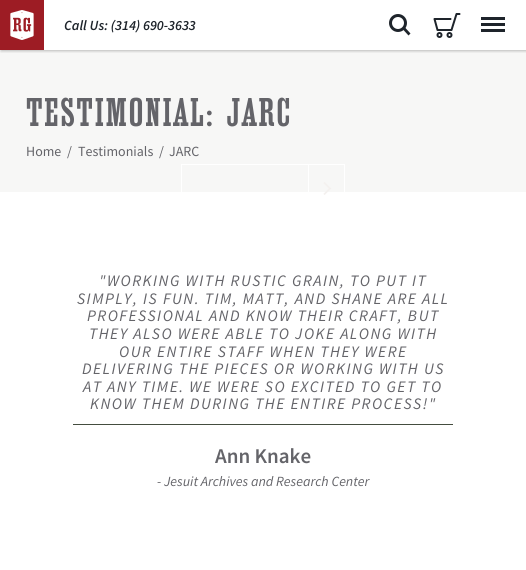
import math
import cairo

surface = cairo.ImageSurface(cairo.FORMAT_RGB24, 526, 570)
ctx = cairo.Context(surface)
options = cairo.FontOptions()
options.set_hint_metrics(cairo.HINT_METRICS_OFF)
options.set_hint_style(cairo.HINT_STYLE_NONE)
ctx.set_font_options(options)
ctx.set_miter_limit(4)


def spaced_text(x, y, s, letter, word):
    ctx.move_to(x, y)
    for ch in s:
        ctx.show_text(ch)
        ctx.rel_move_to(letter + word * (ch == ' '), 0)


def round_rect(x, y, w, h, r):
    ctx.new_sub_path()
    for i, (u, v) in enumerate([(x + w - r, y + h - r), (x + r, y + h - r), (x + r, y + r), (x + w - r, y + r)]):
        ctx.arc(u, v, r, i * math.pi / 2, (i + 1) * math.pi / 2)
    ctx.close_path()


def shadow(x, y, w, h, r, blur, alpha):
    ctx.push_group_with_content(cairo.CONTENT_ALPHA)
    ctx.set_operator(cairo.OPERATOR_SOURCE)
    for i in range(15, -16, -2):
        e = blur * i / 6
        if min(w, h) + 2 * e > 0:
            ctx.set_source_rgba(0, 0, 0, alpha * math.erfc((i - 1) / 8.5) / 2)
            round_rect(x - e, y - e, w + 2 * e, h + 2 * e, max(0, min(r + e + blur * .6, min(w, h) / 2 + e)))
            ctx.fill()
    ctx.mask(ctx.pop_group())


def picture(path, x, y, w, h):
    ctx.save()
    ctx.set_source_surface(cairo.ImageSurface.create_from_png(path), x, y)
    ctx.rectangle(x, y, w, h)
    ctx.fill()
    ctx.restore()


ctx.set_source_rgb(1, 1, 1)
ctx.paint()
ctx.set_source_rgb(0.965, 0.965, 0.961)
ctx.rectangle(0, 50, 526, 142)
ctx.fill()
ctx.save()
ctx.rectangle(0, 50, 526, 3)
ctx.clip()
ctx.set_source_rgb(0, 0, 0)
shadow(1, 1, 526, 50, 0, 1.5, 0.25)
ctx.restore()
ctx.set_source_rgb(0.616, 0.11, 0.141)
ctx.rectangle(0, 0, 44, 50)
ctx.fill()
picture("img1.png", 10, 10, 24, 30)
ctx.select_font_face("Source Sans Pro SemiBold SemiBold", cairo.FONT_SLANT_ITALIC)
ctx.set_font_size(14)
ctx.set_source_rgb(0.118, 0.141, 0.169)
ctx.move_to(64, 30)
ctx.show_text("Call Us: (314) 690-3633")
ctx.new_path()
ctx.arc(398, 23, 7.5, 0, 2 * math.pi)
ctx.set_line_width(3)
ctx.stroke()
ctx.new_path()
ctx.move_to(405, 27.5)
ctx.line_to(410.5, 33.5)
ctx.line_to(408.5, 35.5)
ctx.line_to(403, 29.5)
ctx.close_path()
ctx.fill()
ctx.new_path()
ctx.move_to(450.5, 19)
ctx.line_to(434.5, 19)
ctx.line_to(437.5, 30)
ctx.line_to(451.5, 30)
ctx.line_to(456.5, 14)
ctx.line_to(459.5, 14)
ctx.set_line_width(2)
ctx.set_line_cap(cairo.LINE_CAP_ROUND)
ctx.set_line_join(cairo.LINE_JOIN_ROUND)
ctx.stroke()
ctx.arc(439.5, 35, 2, 0, 2 * math.pi)
ctx.set_line_cap(cairo.LINE_CAP_BUTT)
ctx.set_line_join(cairo.LINE_JOIN_MITER)
ctx.stroke()
ctx.arc(449.5, 35, 2, 0, 2 * math.pi)
ctx.stroke()
ctx.rectangle(481, 23, 24, 3)
ctx.fill()
ctx.rectangle(481, 17, 24, 3)
ctx.fill()
ctx.rectangle(481, 29, 24, 3)
ctx.fill()
ctx.select_font_face("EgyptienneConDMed")
ctx.set_font_size(42)
ctx.set_source_rgb(0.392, 0.392, 0.412)
spaced_text(26, 126, "TESTIMONIAL: JARC", 1.5, 0)
ctx.select_font_face("Source Sans Pro")
ctx.set_font_size(14)
ctx.move_to(26, 156)
ctx.show_text("Home")
ctx.move_to(67, 156)
ctx.show_text("/")
ctx.move_to(78, 156)
ctx.show_text("Testimonials")
ctx.move_to(159, 156)
ctx.show_text("/")
ctx.move_to(169, 156)
ctx.show_text("JARC")
ctx.rectangle(181.5, 164.5, 163, 47)
ctx.set_source_rgb(1, 1, 1)
ctx.set_line_width(1)
ctx.stroke()
ctx.new_path()
ctx.move_to(324, 182.5)
ctx.line_to(330, 188.5)
ctx.line_to(324, 194.5)
ctx.set_source_rgb(0.953, 0.941, 0.933)
ctx.set_line_width(1.7)
ctx.stroke()
ctx.set_source_rgb(1, 1, 1)
ctx.rectangle(308, 164, 1, 28)
ctx.fill()
ctx.select_font_face("Source Sans Pro", cairo.FONT_SLANT_ITALIC)
ctx.set_font_size(16)
ctx.set_source_rgb(0.392, 0.392, 0.412)
spaced_text(99, 286, "\"WORKING WITH RUSTIC GRAIN, TO PUT IT", 1.5, 0)
spaced_text(77, 304, "SIMPLY, IS FUN. TIM, MATT, AND SHANE ARE ALL", 1.5, 0)
spaced_text(87, 321, "PROFESSIONAL AND KNOW THEIR CRAFT, BUT", 1.5, 0)
spaced_text(89, 339, "THEY ALSO WERE ABLE TO JOKE ALONG WITH", 1.5, 0)
spaced_text(119, 357, "OUR ENTIRE STAFF WHEN THEY WERE", 1.5, 0)
spaced_text(82, 374, "DELIVERING THE PIECES OR WORKING WITH US", 1.5, 0)
spaced_text(83, 392, "AT ANY TIME. WE WERE SO EXCITED TO GET TO", 1.5, 0)
spaced_text(90, 409, "KNOW THEM DURING THE ENTIRE PROCESS!\"", 1.5, 0)
ctx.set_source_rgb(0.267, 0.302, 0.247)
ctx.rectangle(73, 424, 380, 1)
ctx.fill()
ctx.select_font_face("Source Sans Pro SemiBold SemiBold")
ctx.set_font_size(21)
ctx.set_source_rgb(0.392, 0.392, 0.412)
ctx.move_to(215, 463)
ctx.show_text("Ann Knake")
ctx.select_font_face("Source Sans Pro", cairo.FONT_SLANT_ITALIC)
ctx.set_font_size(14)
ctx.move_to(157, 486)
ctx.show_text("- Jesuit Archives and Research Center")
surface.write_to_png("page.png")
